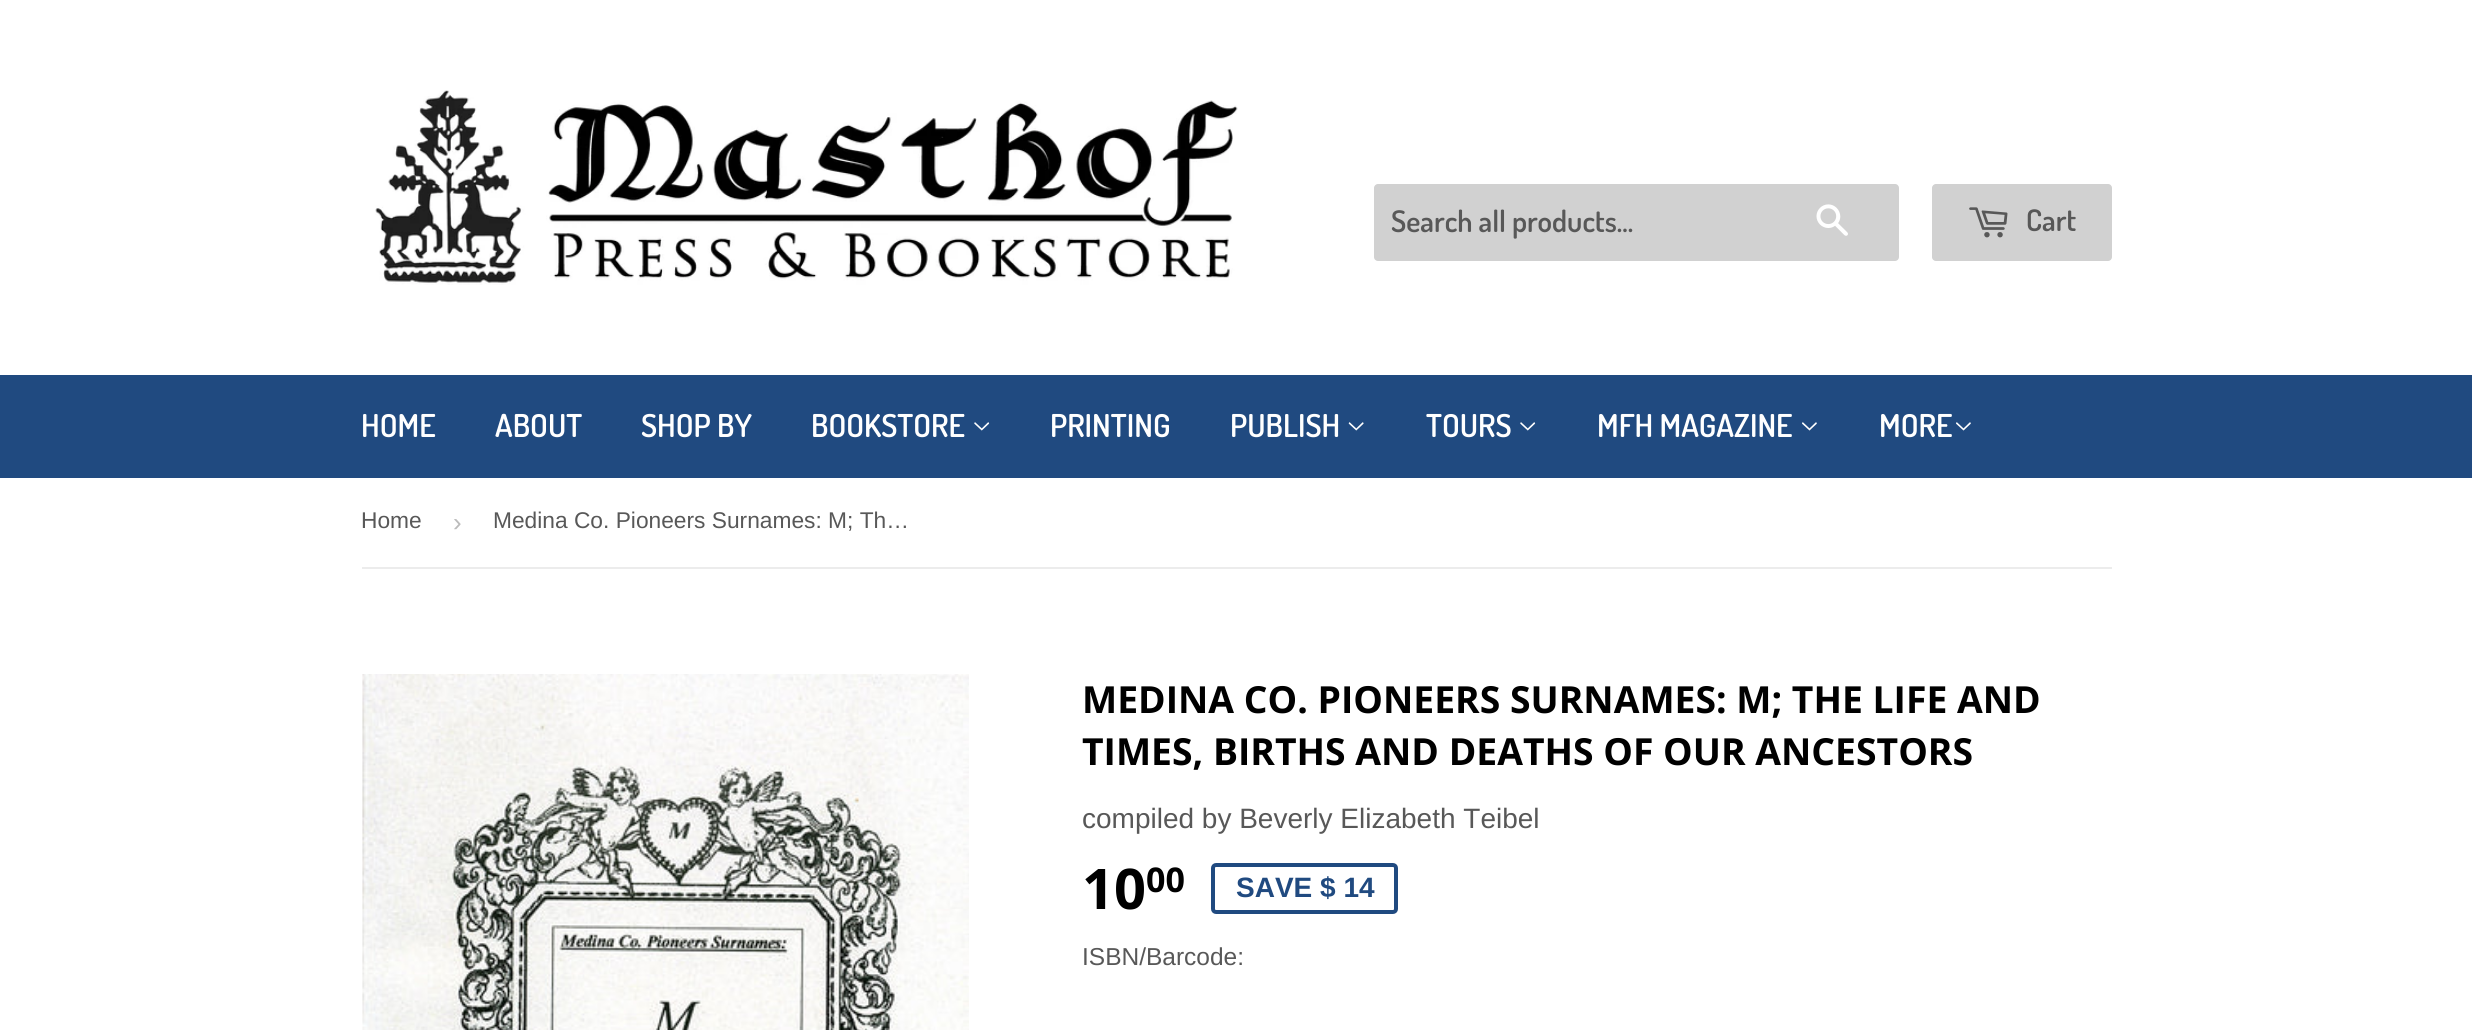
import math
import cairo

surface = cairo.ImageSurface(cairo.FORMAT_RGB24, 2472, 1030)
ctx = cairo.Context(surface)
options = cairo.FontOptions()
options.set_hint_metrics(cairo.HINT_METRICS_OFF)
options.set_hint_style(cairo.HINT_STYLE_NONE)
ctx.set_font_options(options)
ctx.set_miter_limit(4)


def round_rect(x, y, w, h, r):
    ctx.new_sub_path()
    for i, (u, v) in enumerate([(x + w - r, y + h - r), (x + r, y + h - r), (x + r, y + r), (x + w - r, y + r)]):
        ctx.arc(u, v, r, i * math.pi / 2, (i + 1) * math.pi / 2)
    ctx.close_path()


def picture(path, x, y, w, h):
    ctx.save()
    ctx.set_source_surface(cairo.ImageSurface.create_from_png(path), x, y)
    ctx.rectangle(x, y, w, h)
    ctx.fill()
    ctx.restore()


ctx.set_source_rgb(1, 1, 1)
ctx.paint()
picture("img1.png", 375, 90, 863, 195)
ctx.set_source_rgb(0.82, 0.82, 0.82)
round_rect(1374, 184, 525, 77, 4)
ctx.fill()
ctx.select_font_face("Dosis SemiBold")
ctx.set_font_size(29.75)
ctx.set_source_rgb(0.345, 0.345, 0.345)
ctx.move_to(1391, 232)
ctx.show_text("Search all products...")
picture("img2.png", 1816, 204, 32, 32)
ctx.set_source_rgb(0.82, 0.82, 0.82)
round_rect(1932, 184, 180, 77, 4)
ctx.fill()
picture("img3.png", 1969, 207, 39, 31)
ctx.set_source_rgb(0.345, 0.345, 0.345)
ctx.move_to(2026, 231)
ctx.show_text("Cart")
ctx.set_source_rgb(0.125, 0.29, 0.502)
ctx.rectangle(0, 375, 2472, 103)
ctx.fill()
ctx.set_font_size(31.5)
ctx.set_source_rgb(1, 1, 1)
ctx.move_to(361, 437)
ctx.show_text("HOME")
ctx.move_to(495, 437)
ctx.show_text("ABOUT")
ctx.move_to(641, 437)
ctx.show_text("SHOP BY")
ctx.move_to(811, 437)
ctx.show_text("BOOKSTORE")
picture("img4.png", 974, 422, 16, 9)
ctx.move_to(1050, 437)
ctx.show_text("PRINTING")
ctx.move_to(1230, 437)
ctx.show_text("PUBLISH")
picture("img5.png", 1348, 422, 16, 9)
ctx.move_to(1426, 437)
ctx.show_text("TOURS")
picture("img4.png", 1520, 422, 16, 9)
ctx.move_to(1597, 437)
ctx.show_text("MFH MAGAZINE")
picture("img6.png", 1802, 422, 15, 9)
ctx.move_to(1879, 437)
ctx.show_text("MORE")
picture("img6.png", 1956, 422, 15, 9)
ctx.set_source_rgb(0.925, 0.925, 0.925)
ctx.rectangle(362, 567, 1750, 2)
ctx.fill()
ctx.select_font_face("Liberation Sans")
ctx.set_font_size(22.75)
ctx.set_source_rgb(0.345, 0.345, 0.345)
ctx.move_to(361, 528)
ctx.show_text("Home")
ctx.set_font_size(26)
ctx.set_source_rgb(0.733, 0.733, 0.733)
ctx.move_to(453, 531)
ctx.show_text("›")
ctx.set_font_size(22.75)
ctx.set_source_rgb(0.345, 0.345, 0.345)
ctx.move_to(493, 528)
ctx.show_text("Medina Co. Pioneers Surnames: M; Th…")
picture("img7.png", 362, 674, 607, 356)
ctx.select_font_face("Open Sans", cairo.FONT_SLANT_NORMAL, cairo.FONT_WEIGHT_BOLD)
ctx.set_font_size(37.3)
ctx.set_source_rgb(0, 0, 0)
ctx.move_to(1082, 713)
ctx.show_text("MEDINA CO. PIONEERS SURNAMES: M; THE LIFE AND")
ctx.move_to(1082, 765)
ctx.show_text("TIMES, BIRTHS AND DEATHS OF OUR ANCESTORS")
ctx.select_font_face("Liberation Sans")
ctx.set_font_size(28)
ctx.set_source_rgb(0.345, 0.345, 0.345)
ctx.move_to(1082, 828)
ctx.show_text("compiled by Beverly Elizabeth Teibel")
ctx.select_font_face("Open Sans", cairo.FONT_SLANT_NORMAL, cairo.FONT_WEIGHT_BOLD)
ctx.set_font_size(56)
ctx.set_source_rgb(0, 0, 0)
ctx.move_to(1082, 909)
ctx.show_text("10")
ctx.set_font_size(34)
ctx.move_to(1146, 892)
ctx.show_text("00")
round_rect(1213, 865, 183, 47, 3)
ctx.set_source_rgb(0.125, 0.29, 0.502)
ctx.set_line_width(4)
ctx.stroke()
ctx.select_font_face("Liberation Sans", cairo.FONT_SLANT_NORMAL, cairo.FONT_WEIGHT_BOLD)
ctx.set_font_size(28)
ctx.move_to(1236, 897)
ctx.show_text("SAVE $ 14")
ctx.select_font_face("Liberation Sans")
ctx.set_font_size(24.5)
ctx.set_source_rgb(0.345, 0.345, 0.345)
ctx.move_to(1082, 965)
ctx.show_text("ISBN/Barcode:")
surface.write_to_png("page.png")
